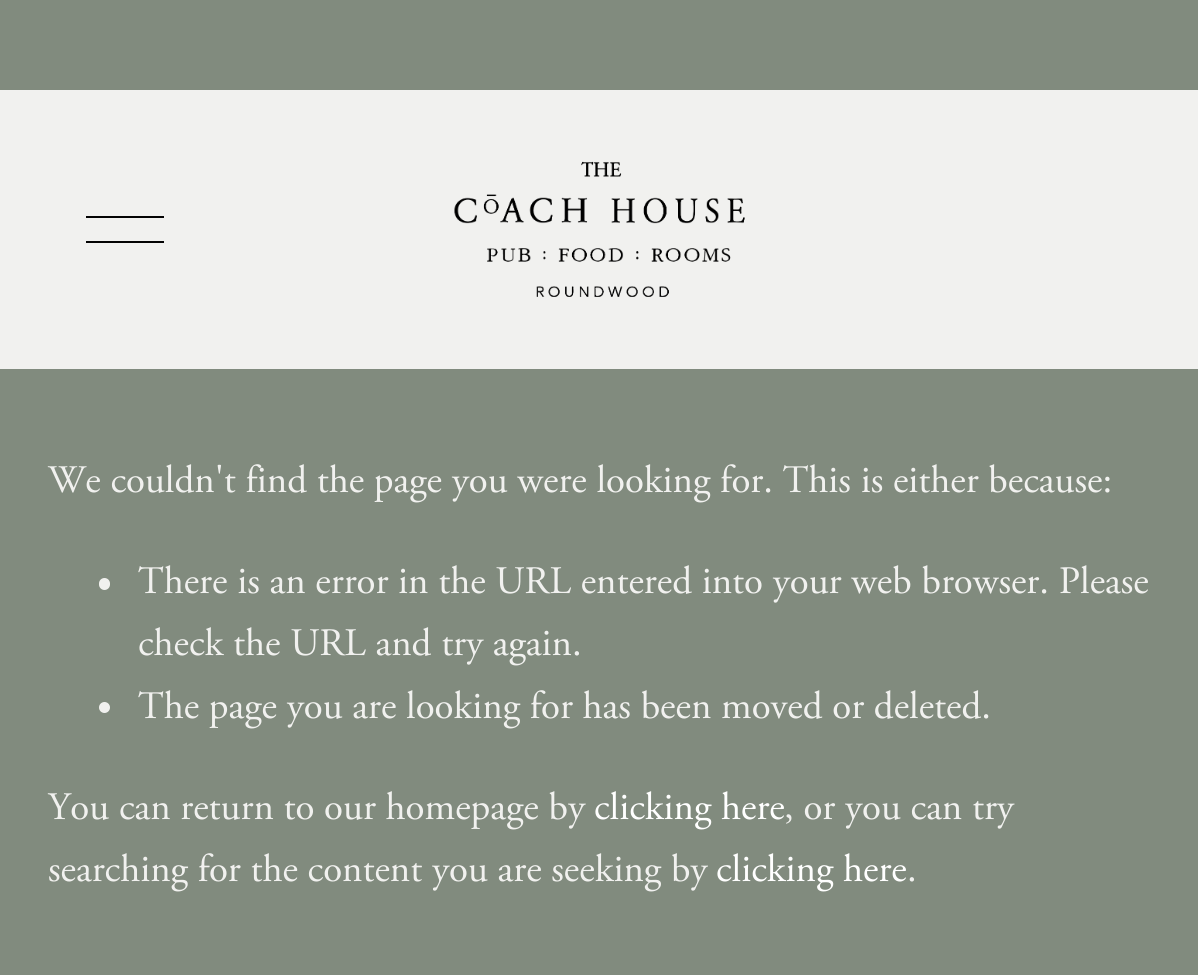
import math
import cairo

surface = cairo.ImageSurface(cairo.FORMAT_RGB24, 1198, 975)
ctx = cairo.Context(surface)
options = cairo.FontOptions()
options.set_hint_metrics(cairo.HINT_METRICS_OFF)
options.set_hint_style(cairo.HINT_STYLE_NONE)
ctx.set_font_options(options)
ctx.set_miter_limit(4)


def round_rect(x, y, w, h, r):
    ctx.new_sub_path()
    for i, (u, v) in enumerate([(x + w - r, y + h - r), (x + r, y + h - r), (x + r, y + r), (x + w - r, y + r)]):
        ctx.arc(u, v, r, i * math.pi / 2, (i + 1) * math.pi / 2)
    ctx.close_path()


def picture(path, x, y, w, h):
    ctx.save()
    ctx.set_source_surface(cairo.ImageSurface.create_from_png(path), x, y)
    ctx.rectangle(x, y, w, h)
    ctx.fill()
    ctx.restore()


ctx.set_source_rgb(0.506, 0.545, 0.494)
ctx.paint()
ctx.set_source_rgb(0.945, 0.945, 0.937)
ctx.rectangle(0, 90, 1198, 279)
ctx.fill()
ctx.set_source_rgb(0.012, 0.012, 0.012)
ctx.rectangle(86, 216, 78, 2)
ctx.fill()
ctx.rectangle(86, 241, 78, 2)
ctx.fill()
picture("img1.png", 454, 161, 291, 136)
ctx.select_font_face("Adobe Garamond")
ctx.set_font_size(38.9)
ctx.set_source_rgb(0.945, 0.945, 0.937)
ctx.move_to(48, 492)
ctx.show_text("We couldn't find the page you were looking for. This is either because:")
round_rect(99, 578, 11, 12, 5.5)
ctx.fill()
ctx.move_to(138, 593)
ctx.show_text("There is an error in the URL entered into your web browser. Please")
ctx.move_to(138, 655)
ctx.show_text("check the URL and try again.")
ctx.new_path()
ctx.arc(104.5, 707.5, 5.5, 0, 2 * math.pi)
ctx.fill()
ctx.move_to(138, 718)
ctx.show_text("The page you are looking for has been moved or deleted.")
ctx.move_to(48, 819)
ctx.show_text("You can return to our homepage by")
ctx.set_source_rgb(1, 1, 1)
ctx.move_to(594, 819)
ctx.show_text("clicking here")
ctx.set_source_rgb(0.945, 0.945, 0.937)
ctx.move_to(784, 819)
ctx.show_text(", or you can try")
ctx.move_to(48, 881)
ctx.show_text("searching for the content you are seeking by")
ctx.set_source_rgb(1, 1, 1)
ctx.move_to(716, 881)
ctx.show_text("clicking here")
ctx.set_source_rgb(0.945, 0.945, 0.937)
ctx.move_to(907, 881)
ctx.show_text(".")
surface.write_to_png("page.png")
